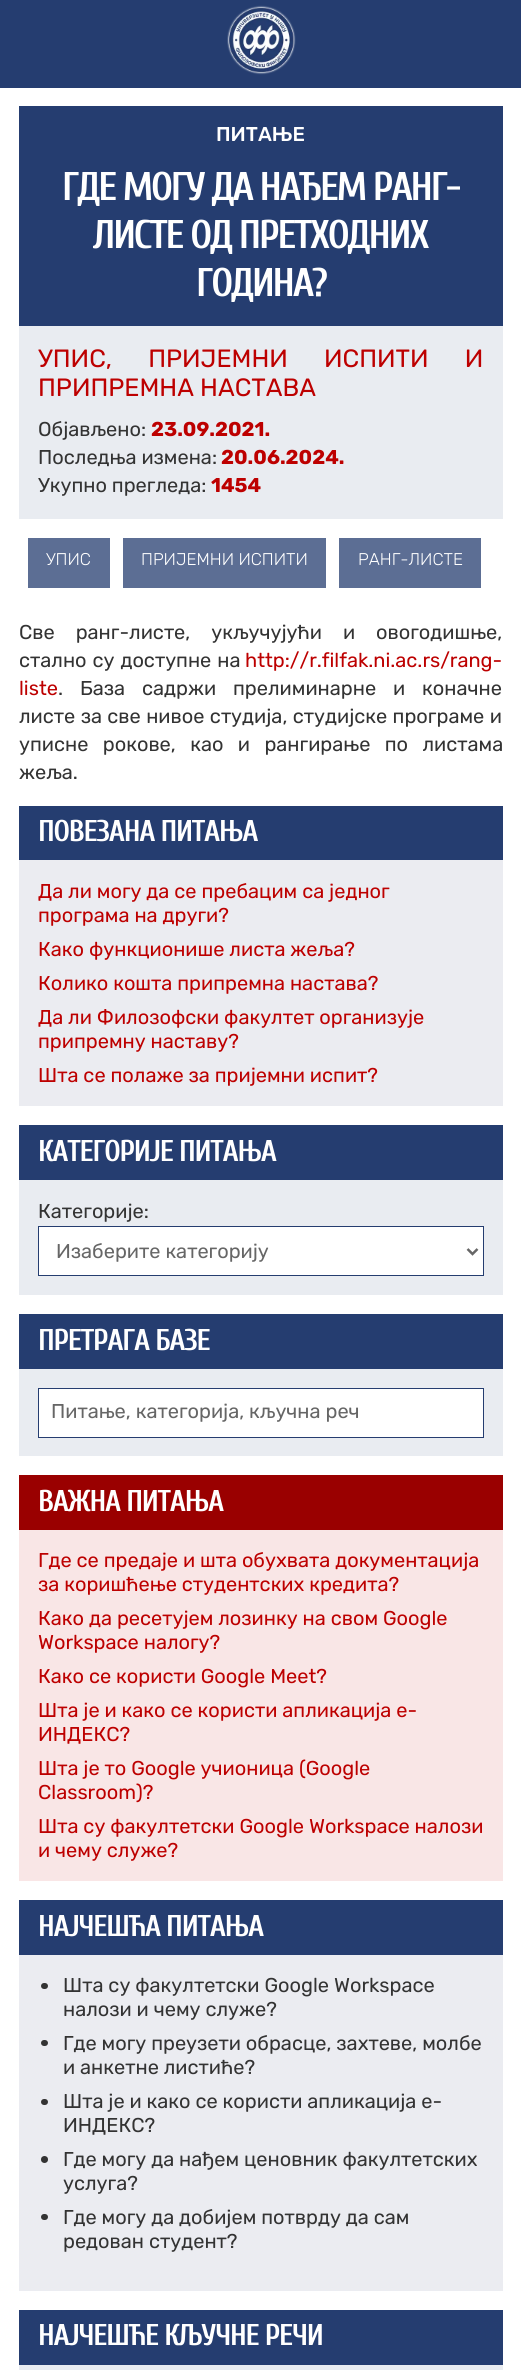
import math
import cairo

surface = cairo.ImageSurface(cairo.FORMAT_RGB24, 521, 2370)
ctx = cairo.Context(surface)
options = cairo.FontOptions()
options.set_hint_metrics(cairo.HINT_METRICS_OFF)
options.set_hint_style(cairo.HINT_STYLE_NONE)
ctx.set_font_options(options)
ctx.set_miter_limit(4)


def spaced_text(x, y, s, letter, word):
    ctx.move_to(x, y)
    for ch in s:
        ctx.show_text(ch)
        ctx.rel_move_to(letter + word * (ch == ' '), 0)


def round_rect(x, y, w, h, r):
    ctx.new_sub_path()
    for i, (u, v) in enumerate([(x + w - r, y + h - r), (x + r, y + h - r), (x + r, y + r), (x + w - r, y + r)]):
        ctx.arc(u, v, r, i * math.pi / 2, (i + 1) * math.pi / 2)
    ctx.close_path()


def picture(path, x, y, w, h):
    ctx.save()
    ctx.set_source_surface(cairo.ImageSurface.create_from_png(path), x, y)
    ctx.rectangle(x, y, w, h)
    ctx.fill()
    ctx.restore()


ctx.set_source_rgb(1, 1, 1)
ctx.paint()
ctx.set_source_rgb(0.145, 0.239, 0.439)
ctx.rectangle(0, 0, 521, 88)
ctx.fill()
picture("img1.png", 227, 5, 69, 70)
ctx.rectangle(19, 106, 484, 220)
ctx.fill()
ctx.select_font_face("Rubik Medium")
ctx.set_font_size(20)
ctx.set_source_rgb(1, 1, 1)
ctx.move_to(216, 141)
ctx.show_text("ПИТАЊЕ")
ctx.select_font_face("Cuprum", cairo.FONT_SLANT_NORMAL, cairo.FONT_WEIGHT_BOLD)
ctx.set_font_size(40)
spaced_text(62, 200, "ГДЕ МОГУ ДА НАЂЕМ РАНГ-", -2.2, 0)
spaced_text(93, 248, "ЛИСТЕ ОД ПРЕТХОДНИХ", -2.2, 0)
spaced_text(196, 296, "ГОДИНА?", -2.2, 0)
ctx.set_source_rgb(0.914, 0.925, 0.945)
ctx.rectangle(19, 326, 484, 193)
ctx.fill()
ctx.select_font_face("Rubik")
ctx.set_font_size(25)
ctx.set_source_rgb(0.741, 0, 0)
spaced_text(38, 367, "УПИС, ПРИЈЕМНИ ИСПИТИ И", 0, 30)
ctx.move_to(38, 396)
ctx.show_text("ПРИПРЕМНА НАСТАВА")
ctx.set_font_size(20)
ctx.set_source_rgb(0.2, 0.2, 0.2)
ctx.move_to(38, 436)
ctx.show_text("Објављено:")
ctx.select_font_face("Rubik", cairo.FONT_SLANT_NORMAL, cairo.FONT_WEIGHT_BOLD)
ctx.set_source_rgb(0.741, 0, 0)
ctx.move_to(151, 436)
ctx.show_text("23.09.2021.")
ctx.select_font_face("Rubik")
ctx.set_source_rgb(0.2, 0.2, 0.2)
ctx.move_to(38, 464)
ctx.show_text("Последња измена:")
ctx.select_font_face("Rubik", cairo.FONT_SLANT_NORMAL, cairo.FONT_WEIGHT_BOLD)
ctx.set_source_rgb(0.741, 0, 0)
ctx.move_to(221, 464)
ctx.show_text("20.06.2024.")
ctx.select_font_face("Rubik")
ctx.set_source_rgb(0.2, 0.2, 0.2)
ctx.move_to(38, 492)
ctx.show_text("Укупно прегледа:")
ctx.select_font_face("Rubik", cairo.FONT_SLANT_NORMAL, cairo.FONT_WEIGHT_BOLD)
ctx.set_source_rgb(0.741, 0, 0)
ctx.move_to(211, 492)
ctx.show_text("1454")
ctx.set_source_rgb(0.361, 0.431, 0.58)
ctx.rectangle(28, 538, 82, 50)
ctx.fill()
ctx.select_font_face("Rubik Light")
ctx.set_font_size(17)
ctx.set_source_rgb(1, 1, 1)
ctx.move_to(46, 565)
ctx.show_text("УПИС")
ctx.set_source_rgb(0.361, 0.431, 0.58)
ctx.rectangle(123, 538, 203, 50)
ctx.fill()
ctx.set_source_rgb(1, 1, 1)
ctx.move_to(141, 565)
ctx.show_text("ПРИЈЕМНИ ИСПИТИ")
ctx.set_source_rgb(0.361, 0.431, 0.58)
ctx.rectangle(339, 538, 142, 50)
ctx.fill()
ctx.set_source_rgb(1, 1, 1)
ctx.move_to(358, 565)
ctx.show_text("РАНГ-ЛИСТЕ")
ctx.select_font_face("Rubik")
ctx.set_font_size(20)
ctx.set_source_rgb(0.2, 0.2, 0.2)
spaced_text(19, 639, "Све ранг-листе, укључујући и овогодишње,", 0, 16)
spaced_text(19, 667, "стално су доступне на", 0, 1)
ctx.set_source_rgb(0.741, 0, 0)
ctx.move_to(245, 667)
ctx.show_text("http://r.filfak.ni.ac.rs/rang-")
ctx.move_to(19, 695)
ctx.show_text("liste")
ctx.set_source_rgb(0.2, 0.2, 0.2)
spaced_text(58, 695, ". База садржи прелиминарне и коначне", 0, 12)
spaced_text(19, 723, "листе за све нивое студија, студијске програме и", 0, 0.5)
spaced_text(19, 751, "уписне рокове, као и рангирање по листама", 0, 9.5)
ctx.move_to(19, 779)
ctx.show_text("жеља.")
ctx.set_source_rgb(0.918, 0.925, 0.945)
ctx.rectangle(19, 860, 484, 246)
ctx.fill()
ctx.set_source_rgb(0.145, 0.239, 0.439)
ctx.rectangle(19, 806, 484, 54)
ctx.fill()
ctx.select_font_face("Cuprum", cairo.FONT_SLANT_NORMAL, cairo.FONT_WEIGHT_BOLD)
ctx.set_font_size(30)
ctx.set_source_rgb(1, 1, 1)
spaced_text(38, 841, "ПОВЕЗАНА ПИТАЊА", -1.25, 0)
ctx.select_font_face("Rubik")
ctx.set_font_size(20)
ctx.set_source_rgb(0.741, 0, 0)
ctx.move_to(38, 898)
ctx.show_text("Да ли могу да се пребацим са једног")
ctx.move_to(38, 922)
ctx.show_text("програма на други?")
ctx.move_to(38, 956)
ctx.show_text("Како функционише листа жеља?")
ctx.move_to(38, 990)
ctx.show_text("Колико кошта припремна настава?")
ctx.move_to(38, 1024)
ctx.show_text("Да ли Филозофски факултет организује")
ctx.move_to(38, 1048)
ctx.show_text("припремну наставу?")
ctx.move_to(38, 1082)
ctx.show_text("Шта се полаже за пријемни испит?")
ctx.set_source_rgb(0.914, 0.925, 0.945)
ctx.rectangle(19, 1180, 484, 115)
ctx.fill()
ctx.set_source_rgb(0.145, 0.239, 0.439)
ctx.rectangle(19, 1125, 484, 55)
ctx.fill()
ctx.select_font_face("Cuprum", cairo.FONT_SLANT_NORMAL, cairo.FONT_WEIGHT_BOLD)
ctx.set_font_size(30)
ctx.set_source_rgb(1, 1, 1)
spaced_text(38, 1161, "КАТЕГОРИЈЕ ПИТАЊА", -1.25, 0)
ctx.select_font_face("Rubik")
ctx.set_font_size(20)
ctx.set_source_rgb(0.2, 0.2, 0.2)
ctx.move_to(38, 1218)
ctx.show_text("Категорије:")
ctx.set_source_rgb(1, 1, 1)
ctx.rectangle(38.5, 1226.5, 445, 49)
ctx.fill_preserve()
ctx.set_source_rgb(0.145, 0.239, 0.439)
ctx.set_line_width(1)
ctx.stroke()
ctx.new_path()
ctx.move_to(467.5, 1249)
ctx.line_to(472.5, 1254)
ctx.line_to(477.5, 1249)
ctx.set_source_rgb(0.4, 0.4, 0.4)
ctx.set_line_width(2.5)
ctx.stroke()
ctx.move_to(56, 1258)
ctx.show_text("Изаберите категорију")
ctx.set_source_rgb(0.914, 0.925, 0.945)
ctx.rectangle(19, 1369, 484, 87)
ctx.fill()
ctx.set_source_rgb(0.145, 0.239, 0.439)
ctx.rectangle(19, 1314, 484, 55)
ctx.fill()
ctx.select_font_face("Cuprum", cairo.FONT_SLANT_NORMAL, cairo.FONT_WEIGHT_BOLD)
ctx.set_font_size(30)
ctx.set_source_rgb(1, 1, 1)
spaced_text(38, 1350, "ПРЕТРАГА БАЗЕ", -1.25, 0)
ctx.rectangle(38.5, 1388.5, 445, 49)
ctx.fill_preserve()
ctx.set_source_rgb(0.145, 0.239, 0.439)
ctx.set_line_width(1)
ctx.stroke()
ctx.select_font_face("Rubik")
ctx.set_font_size(20)
ctx.set_source_rgb(0.4, 0.4, 0.4)
ctx.move_to(51, 1418)
ctx.show_text("Питање, категорија, кључна реч")
ctx.set_source_rgb(0.976, 0.902, 0.902)
ctx.rectangle(19, 1530, 484, 351)
ctx.fill()
ctx.set_source_rgb(0.604, 0, 0)
ctx.rectangle(19, 1475, 484, 55)
ctx.fill()
ctx.select_font_face("Cuprum", cairo.FONT_SLANT_NORMAL, cairo.FONT_WEIGHT_BOLD)
ctx.set_font_size(30)
ctx.set_source_rgb(1, 1, 1)
spaced_text(38, 1511, "ВАЖНА ПИТАЊА", -1.25, 0)
ctx.select_font_face("Rubik")
ctx.set_font_size(20)
ctx.set_source_rgb(0.741, 0, 0)
ctx.move_to(38, 1567)
ctx.show_text("Где се предаје и шта обухвата документација")
ctx.move_to(38, 1591)
ctx.show_text("за коришћење студентских кредита?")
ctx.move_to(38, 1625)
ctx.show_text("Како да ресетујем лозинку на свом Google")
ctx.move_to(38, 1649)
ctx.show_text("Workspace налогу?")
ctx.move_to(38, 1683)
ctx.show_text("Како се користи Google Meet?")
ctx.move_to(38, 1717)
ctx.show_text("Шта је и како се користи апликација е-")
ctx.move_to(38, 1741)
ctx.show_text("ИНДЕКС?")
ctx.move_to(38, 1775)
ctx.show_text("Шта је то Google учионица (Google")
ctx.move_to(38, 1799)
ctx.show_text("Classroom)?")
ctx.move_to(38, 1833)
ctx.show_text("Шта су факултетски Google Workspace налози")
ctx.move_to(38, 1857)
ctx.show_text("и чему служе?")
ctx.set_source_rgb(0.918, 0.925, 0.945)
ctx.rectangle(19, 1955, 484, 336)
ctx.fill()
ctx.set_source_rgb(0.145, 0.239, 0.439)
ctx.rectangle(19, 1900, 484, 55)
ctx.fill()
ctx.select_font_face("Cuprum", cairo.FONT_SLANT_NORMAL, cairo.FONT_WEIGHT_BOLD)
ctx.set_font_size(30)
ctx.set_source_rgb(1, 1, 1)
spaced_text(38, 1936, "НАЈЧЕШЋА ПИТАЊА", -1.25, 0)
ctx.set_source_rgb(0.2, 0.2, 0.2)
round_rect(41, 1983, 7, 6, 3)
ctx.fill()
ctx.select_font_face("Rubik")
ctx.set_font_size(20)
ctx.move_to(63, 1992)
ctx.show_text("Шта су факултетски Google Workspace")
ctx.move_to(63, 2016)
ctx.show_text("налози и чему служе?")
round_rect(41, 2040, 7, 6, 3)
ctx.fill()
ctx.move_to(63, 2050)
ctx.show_text("Где могу преузети обрасце, захтеве, молбе")
ctx.move_to(63, 2074)
ctx.show_text("и анкетне листиће?")
round_rect(41, 2099, 7, 6, 3)
ctx.fill()
ctx.move_to(63, 2108)
ctx.show_text("Шта је и како се користи апликација е-")
ctx.move_to(63, 2132)
ctx.show_text("ИНДЕКС?")
ctx.new_path()
ctx.arc(44.5, 2159.5, 3.5, 0, 2 * math.pi)
ctx.fill()
ctx.move_to(63, 2166)
ctx.show_text("Где могу да нађем ценовник факултетских")
ctx.move_to(63, 2190)
ctx.show_text("услуга?")
round_rect(41, 2214, 7, 6, 3)
ctx.fill()
ctx.move_to(63, 2224)
ctx.show_text("Где могу да добијем потврду да сам")
ctx.move_to(63, 2248)
ctx.show_text("редован студент?")
ctx.set_source_rgb(0.914, 0.925, 0.945)
ctx.rectangle(19, 2365, 484, 5)
ctx.fill()
ctx.set_source_rgb(0.145, 0.239, 0.439)
ctx.rectangle(19, 2310, 484, 55)
ctx.fill()
ctx.select_font_face("Cuprum", cairo.FONT_SLANT_NORMAL, cairo.FONT_WEIGHT_BOLD)
ctx.set_font_size(30)
ctx.set_source_rgb(1, 1, 1)
spaced_text(38, 2345, "НАЈЧЕШЋЕ КЉУЧНЕ РЕЧИ", -1.25, 0)
surface.write_to_png("page.png")
